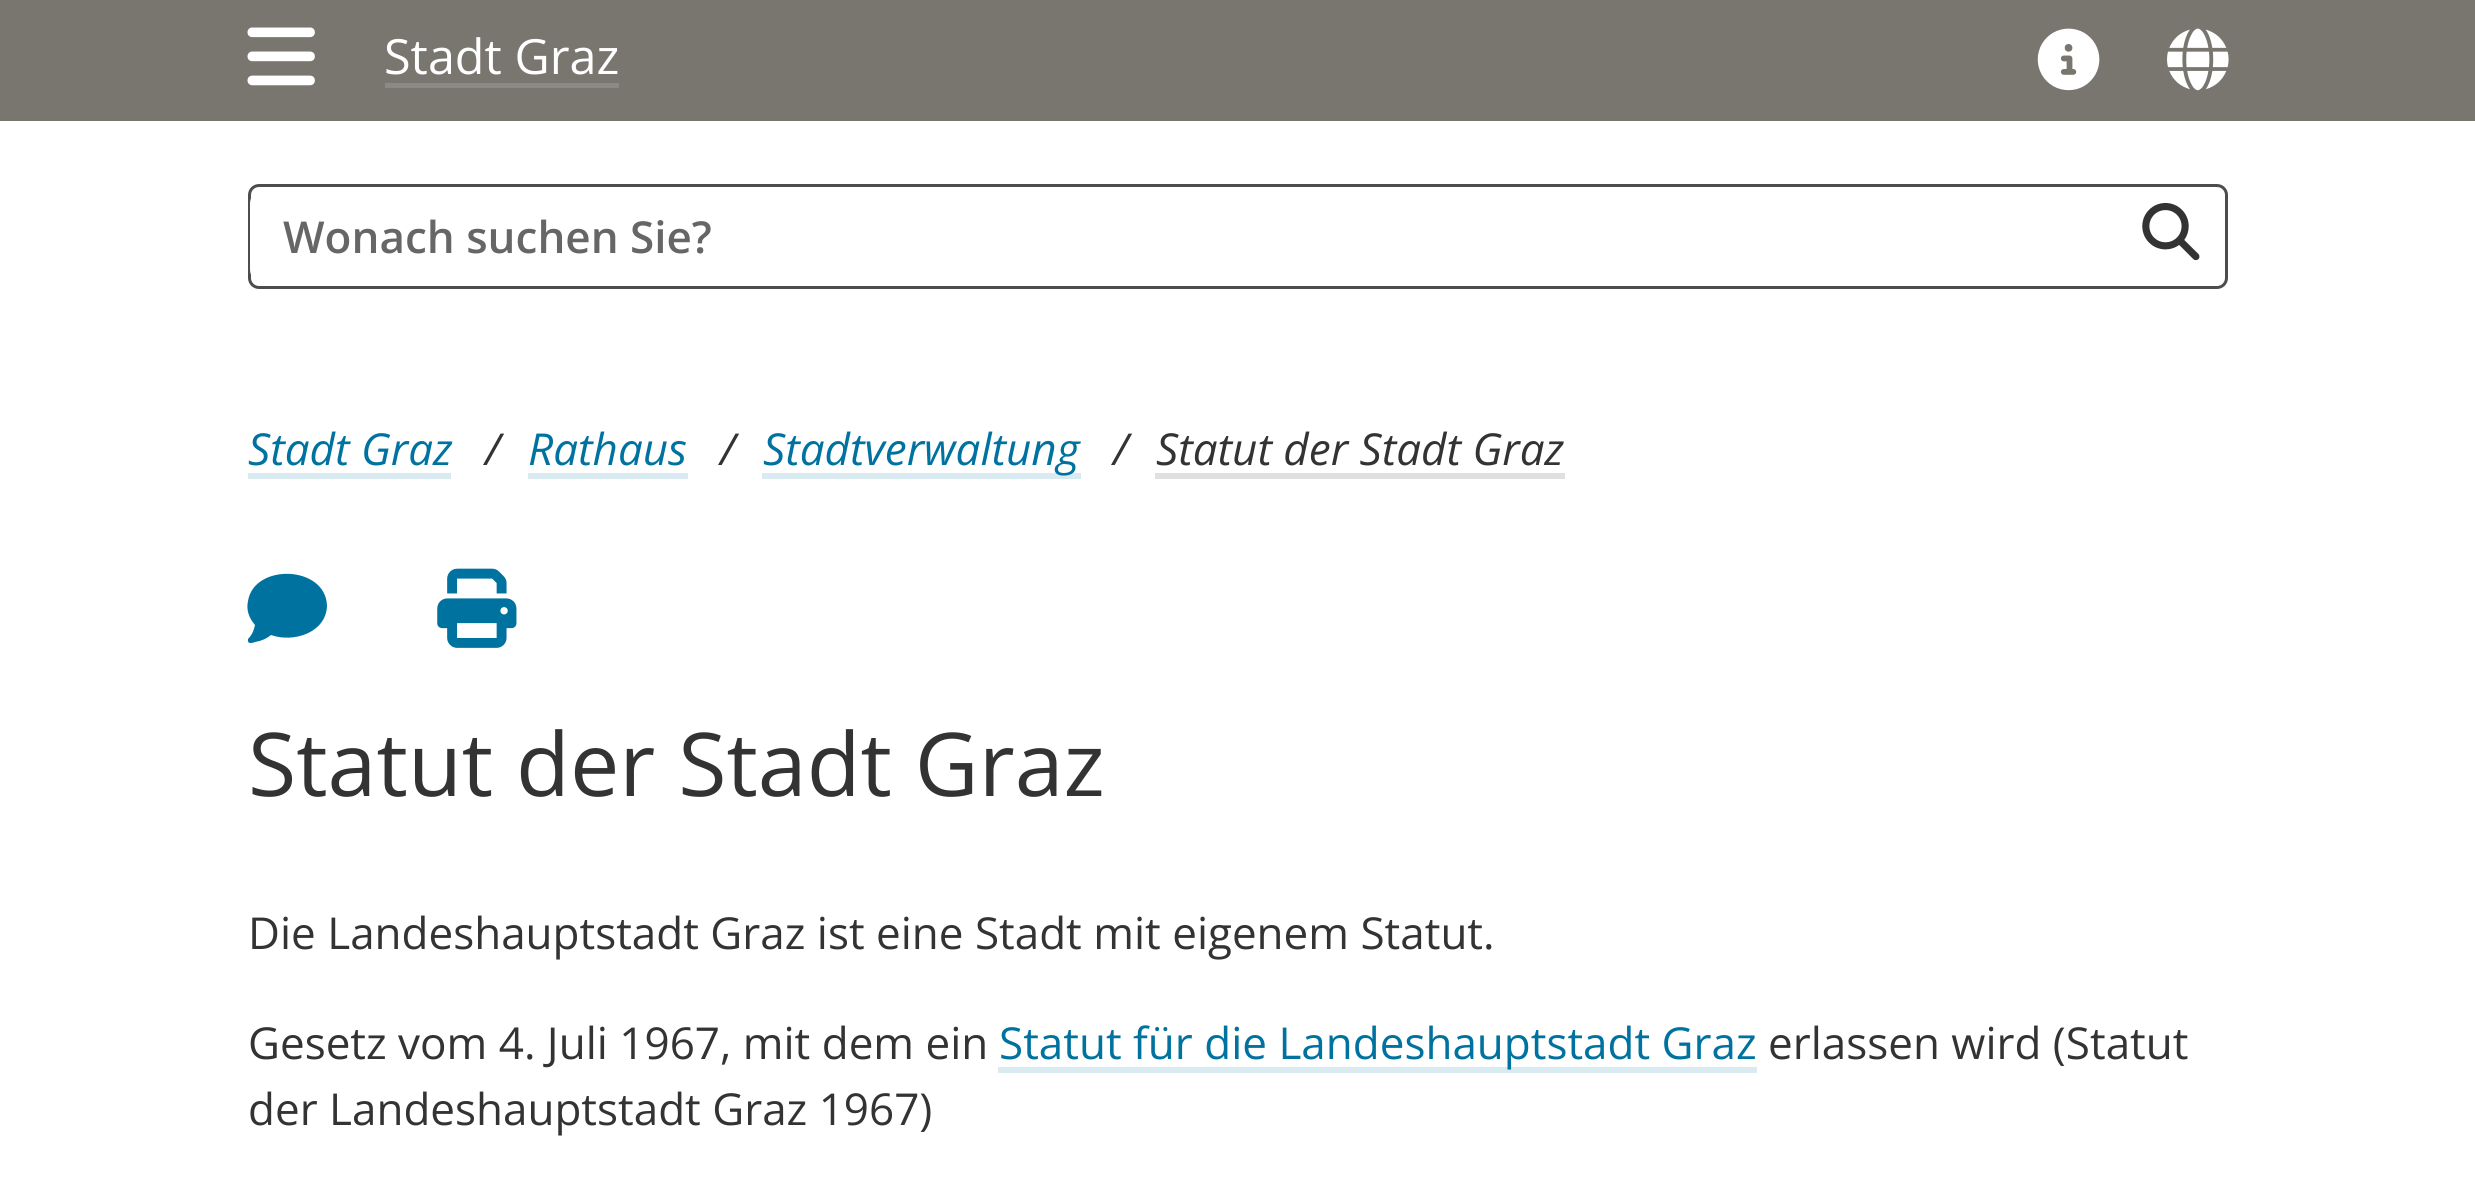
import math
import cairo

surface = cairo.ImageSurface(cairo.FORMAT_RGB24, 2475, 1185)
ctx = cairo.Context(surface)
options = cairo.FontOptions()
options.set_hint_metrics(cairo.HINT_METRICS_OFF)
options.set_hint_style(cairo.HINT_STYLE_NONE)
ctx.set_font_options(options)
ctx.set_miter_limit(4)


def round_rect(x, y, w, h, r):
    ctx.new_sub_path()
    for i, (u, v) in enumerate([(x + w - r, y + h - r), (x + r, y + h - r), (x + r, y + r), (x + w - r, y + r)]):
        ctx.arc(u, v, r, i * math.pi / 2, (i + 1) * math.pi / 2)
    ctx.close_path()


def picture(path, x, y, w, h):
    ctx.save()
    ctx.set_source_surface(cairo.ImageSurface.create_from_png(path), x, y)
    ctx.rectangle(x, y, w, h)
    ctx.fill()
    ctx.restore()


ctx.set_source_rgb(1, 1, 1)
ctx.paint()
ctx.set_source_rgb(0.475, 0.463, 0.439)
ctx.rectangle(0, 0, 2475, 121)
ctx.fill()
picture("img1.png", 247, 27, 68, 59)
ctx.select_font_face("Open Sans")
ctx.set_font_size(48.5)
ctx.set_source_rgb(1, 1, 1)
ctx.move_to(384, 74)
ctx.show_text("Stadt Graz")
ctx.set_source_rgb(0.549, 0.533, 0.518)
ctx.rectangle(385, 83, 234, 5)
ctx.fill()
picture("img2.png", 2037, 28, 63, 63)
picture("img3.png", 2167, 28, 62, 63)
round_rect(249.5, 185.5, 1977, 102, 9.5)
ctx.set_source_rgb(0.302, 0.302, 0.302)
ctx.set_line_width(3)
ctx.stroke()
ctx.set_source_rgb(1, 1, 1)
round_rect(250, 187, 1892, 99, 17)
ctx.fill()
ctx.select_font_face("Open Sans SemiBold")
ctx.set_font_size(44)
ctx.set_source_rgb(0.4, 0.4, 0.4)
ctx.move_to(283, 253)
ctx.show_text("Wonach suchen Sie?")
picture("img4.png", 2142, 202, 58, 59)
ctx.select_font_face("Open Sans", cairo.FONT_SLANT_ITALIC)
ctx.set_source_rgb(0, 0.447, 0.624)
ctx.move_to(248, 465)
ctx.show_text("Stadt Graz")
ctx.set_source_rgb(0.851, 0.918, 0.945)
ctx.rectangle(248, 473, 203, 6)
ctx.fill()
ctx.set_source_rgb(0.2, 0.2, 0.2)
ctx.move_to(485, 465)
ctx.show_text("/")
ctx.set_source_rgb(0, 0.447, 0.624)
ctx.move_to(528, 465)
ctx.show_text("Rathaus")
ctx.set_source_rgb(0.851, 0.918, 0.945)
ctx.rectangle(528, 473, 160, 6)
ctx.fill()
ctx.set_source_rgb(0.2, 0.2, 0.2)
ctx.move_to(720, 465)
ctx.show_text("/")
ctx.set_source_rgb(0.851, 0.918, 0.945)
ctx.rectangle(762, 473, 319, 6)
ctx.fill()
ctx.set_source_rgb(0, 0.447, 0.624)
ctx.move_to(763, 465)
ctx.show_text("Stadtverwaltung")
ctx.set_source_rgb(0.2, 0.2, 0.2)
ctx.move_to(1113, 465)
ctx.show_text("/")
ctx.move_to(1156, 465)
ctx.show_text("Statut der Stadt Graz")
ctx.set_source_rgb(0.878, 0.878, 0.878)
ctx.rectangle(1155, 473, 410, 6)
ctx.fill()
ctx.set_source_rgb(0, 0.447, 0.624)
ctx.new_path()
ctx.move_to(327, 606)
ctx.curve_to(326, 633, 293, 643, 271, 635)
ctx.curve_to(266, 639, 261, 641, 255, 642)
ctx.curve_to(253, 643, 248, 644, 248, 641)
ctx.line_to(248, 639)
ctx.curve_to(252, 635, 254, 630, 255, 625)
ctx.curve_to(249, 618, 246, 610, 248, 601)
ctx.curve_to(254, 563, 326, 565, 327, 606)
ctx.close_path()
ctx.fill()
picture("img5.png", 437, 568, 80, 80)
ctx.select_font_face("Open Sans")
ctx.set_font_size(88)
ctx.set_source_rgb(0.2, 0.2, 0.2)
ctx.move_to(248, 796)
ctx.show_text("Statut der Stadt Graz")
ctx.set_font_size(44)
ctx.move_to(248, 949)
ctx.show_text("Die Landeshauptstadt Graz ist eine Stadt mit eigenem Statut.")
ctx.move_to(248, 1059)
ctx.show_text("Gesetz vom 4. Juli 1967, mit dem ein")
ctx.set_source_rgb(0.851, 0.918, 0.945)
ctx.rectangle(998, 1067, 759, 6)
ctx.fill()
ctx.set_source_rgb(0, 0.447, 0.624)
ctx.move_to(999, 1059)
ctx.show_text("Statut für die Landeshauptstadt Graz")
ctx.set_source_rgb(0.2, 0.2, 0.2)
ctx.move_to(1768, 1059)
ctx.show_text("erlassen wird (Statut")
ctx.move_to(248, 1125)
ctx.show_text("der Landeshauptstadt Graz 1967)")
surface.write_to_png("page.png")
